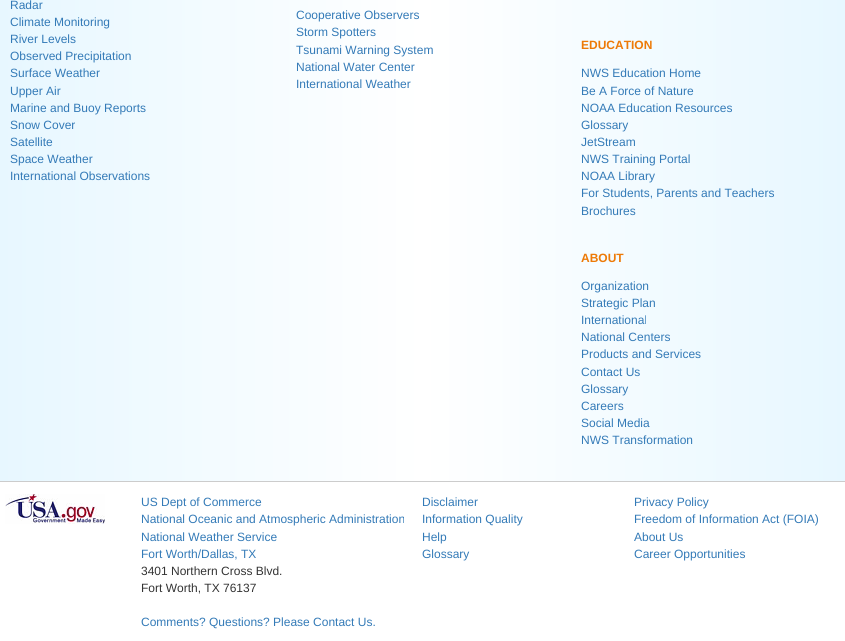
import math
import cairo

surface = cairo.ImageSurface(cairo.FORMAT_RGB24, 845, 641)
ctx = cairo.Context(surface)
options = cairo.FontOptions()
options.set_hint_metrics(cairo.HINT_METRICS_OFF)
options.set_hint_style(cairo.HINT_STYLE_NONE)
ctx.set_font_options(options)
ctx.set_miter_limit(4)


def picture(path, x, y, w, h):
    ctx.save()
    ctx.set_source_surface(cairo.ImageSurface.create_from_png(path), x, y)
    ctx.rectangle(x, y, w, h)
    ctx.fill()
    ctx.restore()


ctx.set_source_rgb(1, 1, 1)
ctx.paint()
gradient = cairo.LinearGradient(0, -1, 845, -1)
gradient.add_color_stop_rgba(0, 0.906, 0.969, 1, 1)
gradient.add_color_stop_rgba(0.5, 1, 1, 1, 1)
gradient.add_color_stop_rgba(1, 0.906, 0.969, 1, 1)
ctx.set_source(gradient)
ctx.rectangle(0, 0, 845, 481)
ctx.fill()
ctx.set_source_rgb(0.8, 0.8, 0.8)
ctx.rectangle(0, 481, 845, 1)
ctx.fill()
ctx.select_font_face("Liberation Sans")
ctx.set_font_size(12)
ctx.set_source_rgb(0.2, 0.478, 0.718)
ctx.move_to(10, 9)
ctx.show_text("Radar")
ctx.move_to(10, 26)
ctx.show_text("Climate Monitoring")
ctx.move_to(10, 43)
ctx.show_text("River Levels")
ctx.move_to(10, 60)
ctx.show_text("Observed Precipitation")
ctx.move_to(10, 77)
ctx.show_text("Surface Weather")
ctx.move_to(10, 95)
ctx.show_text("Upper Air")
ctx.move_to(10, 112)
ctx.show_text("Marine and Buoy Reports")
ctx.move_to(10, 129)
ctx.show_text("Snow Cover")
ctx.move_to(10, 146)
ctx.show_text("Satellite")
ctx.move_to(10, 163)
ctx.show_text("Space Weather")
ctx.move_to(10, 180)
ctx.show_text("International Observations")
ctx.move_to(296, 19)
ctx.show_text("Cooperative Observers")
ctx.move_to(296, 36)
ctx.show_text("Storm Spotters")
ctx.move_to(296, 54)
ctx.show_text("Tsunami Warning System")
ctx.move_to(296, 71)
ctx.show_text("National Water Center")
ctx.move_to(296, 88)
ctx.show_text("International Weather")
ctx.select_font_face("Liberation Sans", cairo.FONT_SLANT_NORMAL, cairo.FONT_WEIGHT_BOLD)
ctx.set_source_rgb(0.929, 0.478, 0.031)
ctx.move_to(581, 49)
ctx.show_text("EDUCATION")
ctx.select_font_face("Liberation Sans")
ctx.set_source_rgb(0.2, 0.478, 0.718)
ctx.move_to(581, 77)
ctx.show_text("NWS Education Home")
ctx.move_to(581, 95)
ctx.show_text("Be A Force of Nature")
ctx.move_to(581, 112)
ctx.show_text("NOAA Education Resources")
ctx.move_to(581, 129)
ctx.show_text("Glossary")
ctx.move_to(581, 146)
ctx.show_text("JetStream")
ctx.move_to(581, 163)
ctx.show_text("NWS Training Portal")
ctx.move_to(581, 180)
ctx.show_text("NOAA Library")
ctx.move_to(581, 197)
ctx.show_text("For Students, Parents and Teachers")
ctx.move_to(581, 215)
ctx.show_text("Brochures")
ctx.select_font_face("Liberation Sans", cairo.FONT_SLANT_NORMAL, cairo.FONT_WEIGHT_BOLD)
ctx.set_source_rgb(0.929, 0.478, 0.031)
ctx.move_to(581, 262)
ctx.show_text("ABOUT")
ctx.select_font_face("Liberation Sans")
ctx.set_source_rgb(0.2, 0.478, 0.718)
ctx.move_to(581, 290)
ctx.show_text("Organization")
ctx.move_to(581, 307)
ctx.show_text("Strategic Plan")
ctx.move_to(581, 324)
ctx.show_text("International")
ctx.move_to(581, 341)
ctx.show_text("National Centers")
ctx.move_to(581, 358)
ctx.show_text("Products and Services")
ctx.move_to(581, 376)
ctx.show_text("Contact Us")
ctx.move_to(581, 393)
ctx.show_text("Glossary")
ctx.move_to(581, 410)
ctx.show_text("Careers")
ctx.move_to(581, 427)
ctx.show_text("Social Media")
ctx.move_to(581, 444)
ctx.show_text("NWS Transformation")
picture("img1.png", 5, 494, 100, 30)
ctx.move_to(141, 506)
ctx.show_text("US Dept of Commerce")
ctx.move_to(141, 523)
ctx.show_text("National Oceanic and Atmospheric Administration")
ctx.move_to(141, 541)
ctx.show_text("National Weather Service")
ctx.move_to(141, 558)
ctx.show_text("Fort Worth/Dallas, TX")
ctx.set_source_rgb(0.2, 0.2, 0.2)
ctx.move_to(141, 575)
ctx.show_text("3401 Northern Cross Blvd.")
ctx.move_to(141, 592)
ctx.show_text("Fort Worth, TX 76137")
ctx.set_source_rgb(0.2, 0.478, 0.718)
ctx.move_to(141, 626)
ctx.show_text("Comments? Questions? Please Contact Us.")
ctx.move_to(422, 506)
ctx.show_text("Disclaimer")
ctx.move_to(422, 523)
ctx.show_text("Information Quality")
ctx.move_to(422, 541)
ctx.show_text("Help")
ctx.move_to(422, 558)
ctx.show_text("Glossary")
ctx.move_to(634, 506)
ctx.show_text("Privacy Policy")
ctx.move_to(634, 523)
ctx.show_text("Freedom of Information Act (FOIA)")
ctx.move_to(634, 541)
ctx.show_text("About Us")
ctx.move_to(634, 558)
ctx.show_text("Career Opportunities")
surface.write_to_png("page.png")
